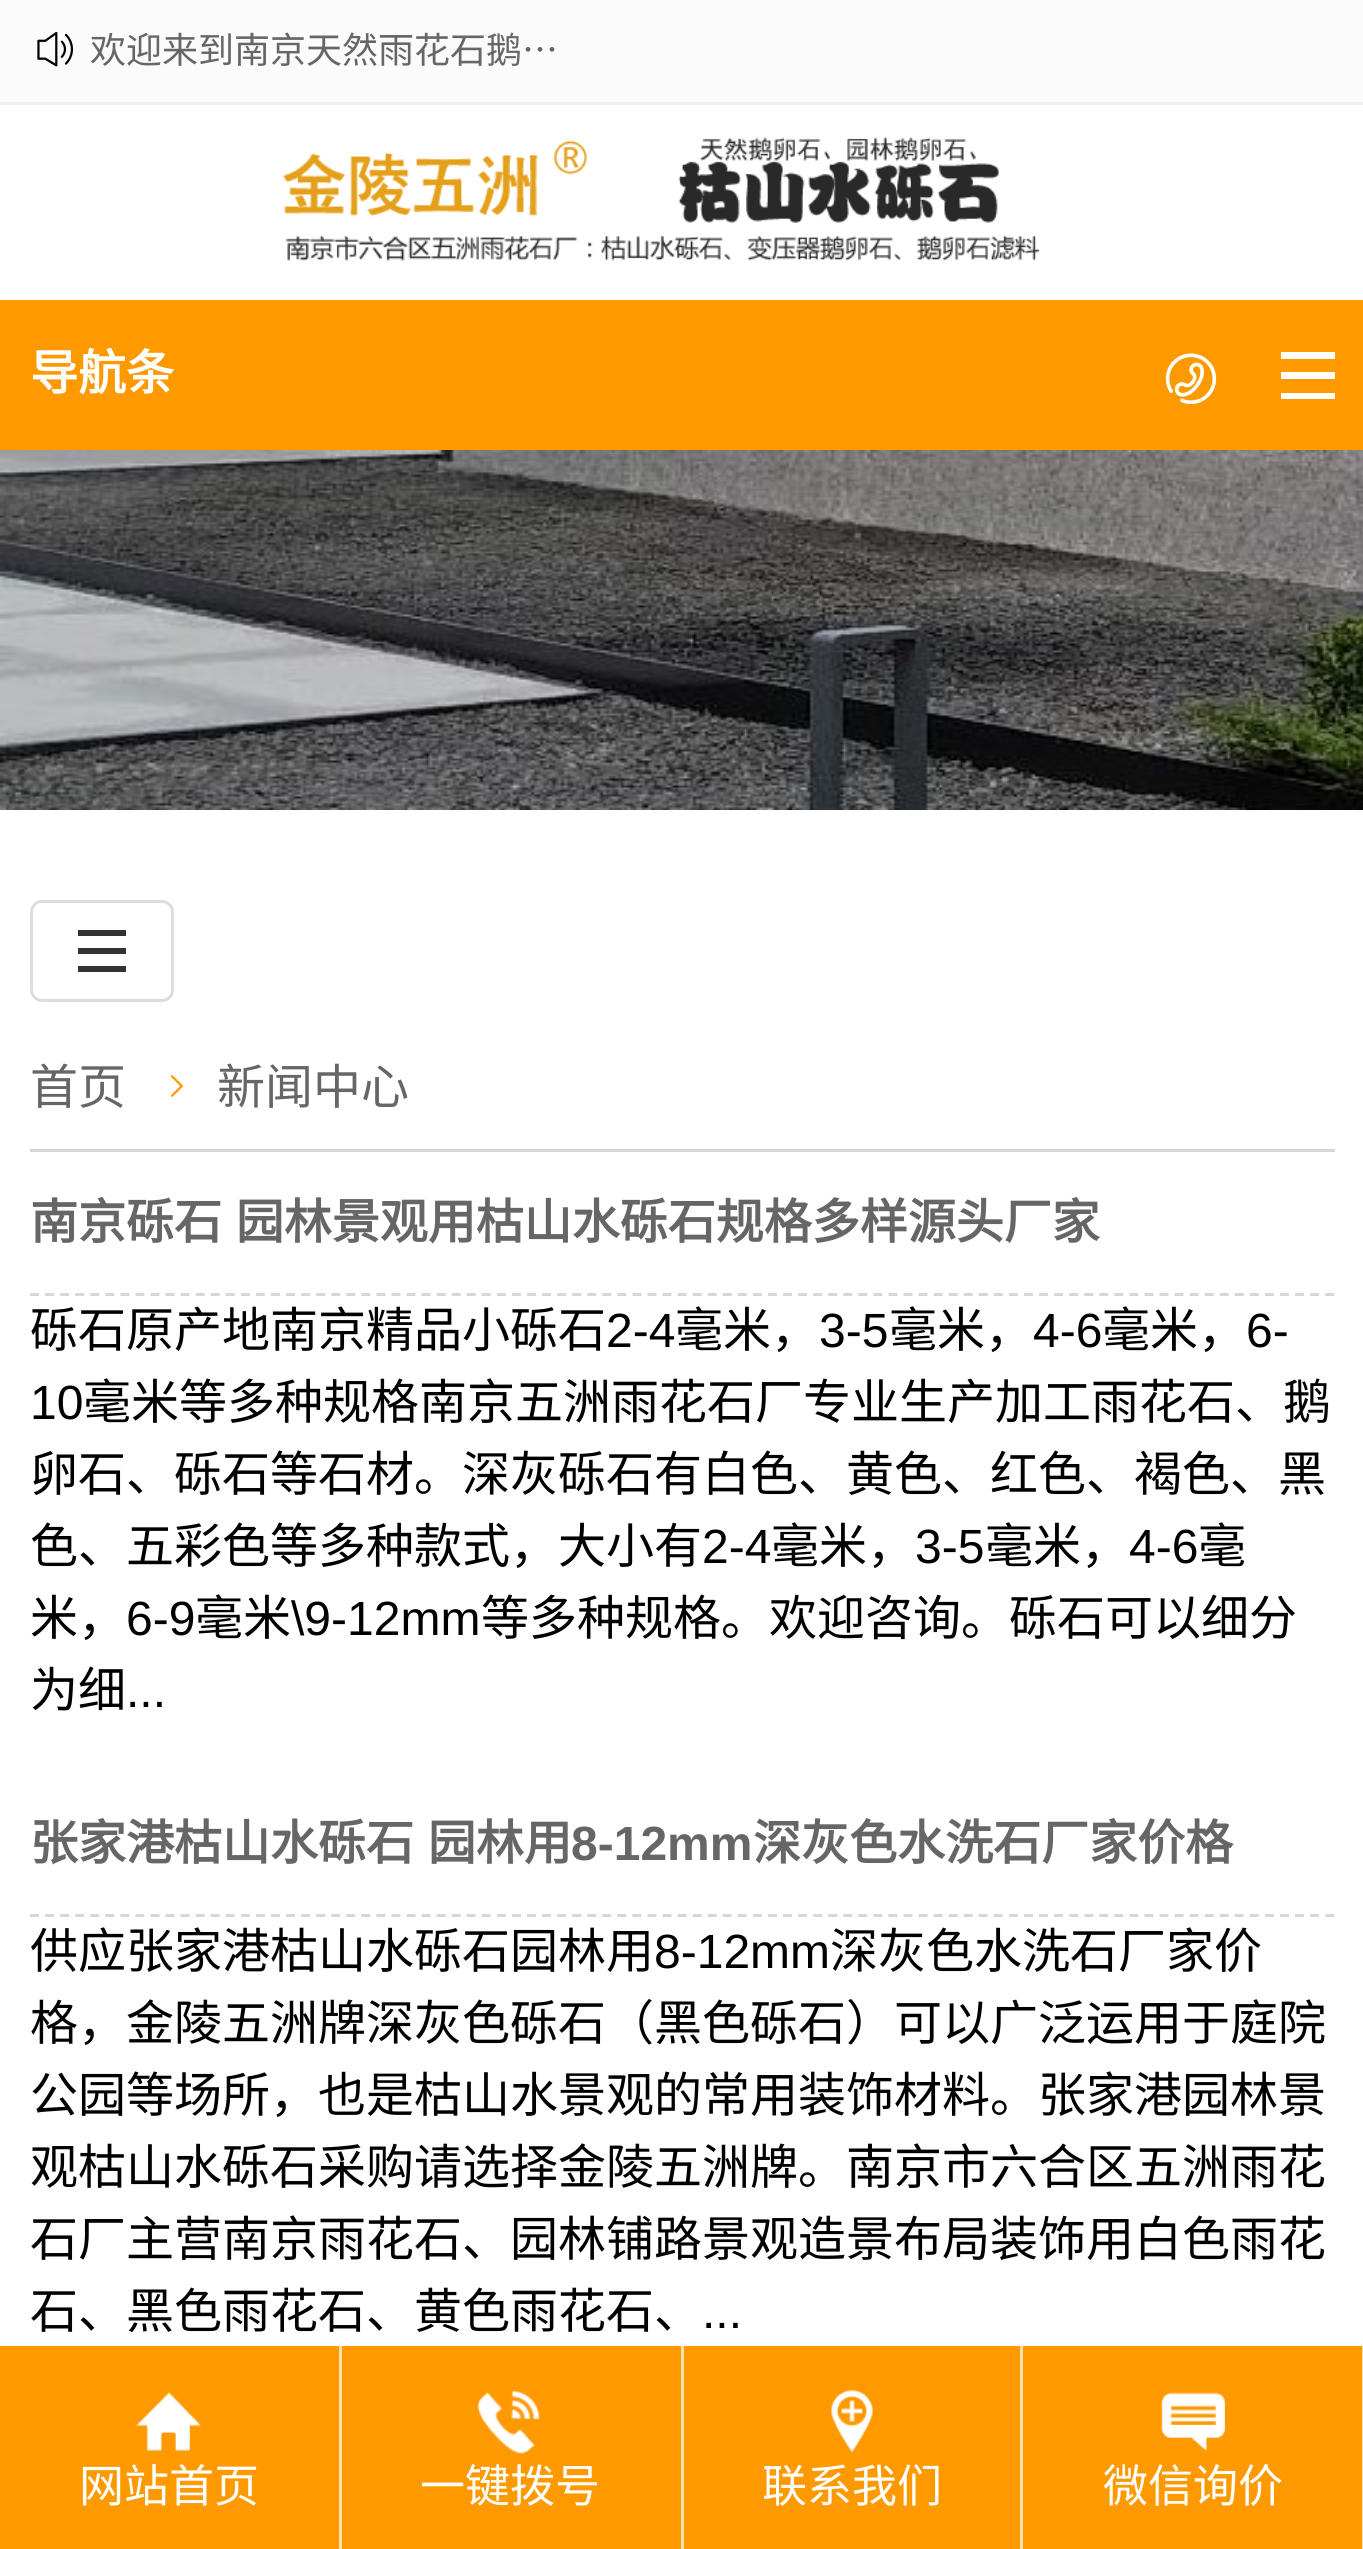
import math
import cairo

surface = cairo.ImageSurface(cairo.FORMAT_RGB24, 1363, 2549)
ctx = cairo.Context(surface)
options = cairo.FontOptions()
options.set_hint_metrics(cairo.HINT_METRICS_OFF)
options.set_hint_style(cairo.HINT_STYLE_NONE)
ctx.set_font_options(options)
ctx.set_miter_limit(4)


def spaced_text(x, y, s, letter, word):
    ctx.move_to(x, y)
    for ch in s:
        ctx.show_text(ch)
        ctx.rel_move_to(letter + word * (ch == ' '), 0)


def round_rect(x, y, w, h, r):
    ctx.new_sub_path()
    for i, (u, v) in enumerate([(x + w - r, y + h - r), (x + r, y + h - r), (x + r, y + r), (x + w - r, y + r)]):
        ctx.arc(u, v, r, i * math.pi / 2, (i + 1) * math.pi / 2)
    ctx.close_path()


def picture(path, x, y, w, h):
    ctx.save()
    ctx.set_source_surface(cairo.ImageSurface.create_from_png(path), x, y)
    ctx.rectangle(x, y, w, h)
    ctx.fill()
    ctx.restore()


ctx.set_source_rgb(1, 1, 1)
ctx.paint()
ctx.set_source_rgb(0.984, 0.984, 0.984)
ctx.rectangle(0, 0, 1363, 102)
ctx.fill()
ctx.set_source_rgb(0.937, 0.937, 0.937)
ctx.rectangle(0, 102, 1363, 3)
ctx.fill()
picture("img1.png", 37, 31, 37, 36)
ctx.select_font_face("Noto Sans CJK SC")
ctx.set_font_size(36)
ctx.set_source_rgb(0.4, 0.4, 0.4)
ctx.move_to(90, 63)
ctx.show_text("欢迎来到南京天然雨花石鹅…")
picture("img2.png", 283, 137, 757, 124)
ctx.set_source_rgb(1, 0.6, 0)
ctx.rectangle(0, 300, 1363, 150)
ctx.fill()
ctx.select_font_face("Noto Sans CJK SC", cairo.FONT_SLANT_NORMAL, cairo.FONT_WEIGHT_BOLD)
ctx.set_font_size(48)
ctx.set_source_rgb(1, 1, 1)
ctx.move_to(30, 390)
ctx.show_text("导航条")
picture("img3.png", 1165, 353, 52, 52)
ctx.new_path()
ctx.move_to(1281, 352)
ctx.line_to(1281, 359)
ctx.line_to(1335, 359)
ctx.line_to(1335, 352)
ctx.close_path()
ctx.move_to(1281, 379)
ctx.line_to(1335, 379)
ctx.line_to(1335, 372)
ctx.line_to(1281, 372)
ctx.close_path()
ctx.move_to(1281, 399)
ctx.line_to(1335, 399)
ctx.line_to(1335, 393)
ctx.line_to(1281, 393)
ctx.close_path()
ctx.fill()
picture("img4.png", 0, 450, 1363, 360)
round_rect(31.5, 901.5, 141, 99, 10.5)
ctx.set_source_rgb(0.867, 0.867, 0.867)
ctx.set_line_width(3)
ctx.stroke()
ctx.set_source_rgb(0.2, 0.2, 0.2)
ctx.new_path()
ctx.move_to(78, 930)
ctx.line_to(78, 936)
ctx.line_to(126, 936)
ctx.line_to(126, 930)
ctx.close_path()
ctx.move_to(78, 954)
ctx.line_to(126, 954)
ctx.line_to(126, 948)
ctx.line_to(78, 948)
ctx.close_path()
ctx.move_to(78, 972)
ctx.line_to(126, 972)
ctx.line_to(126, 966)
ctx.line_to(78, 966)
ctx.close_path()
ctx.fill()
ctx.set_source_rgb(0.839, 0.839, 0.839)
ctx.rectangle(30, 1149, 1305, 3)
ctx.fill()
ctx.select_font_face("Noto Sans CJK SC")
ctx.set_source_rgb(0.4, 0.4, 0.4)
ctx.move_to(30, 1104)
ctx.show_text("首页")
picture("img5.png", 171, 1075, 12, 22)
ctx.move_to(217, 1104)
ctx.show_text("新闻中心")
ctx.new_path()
ctx.move_to(30, 1294.5)
ctx.line_to(1335, 1294.5)
ctx.set_source_rgb(0.843, 0.843, 0.843)
ctx.set_dash([9, 6.06])
ctx.stroke()
ctx.select_font_face("Noto Sans CJK SC", cairo.FONT_SLANT_NORMAL, cairo.FONT_WEIGHT_BOLD)
ctx.set_source_rgb(0.4, 0.4, 0.4)
spaced_text(30, 1239, "南京砾石 园林景观用枯山水砾石规格多样源头厂家", 0, 3)
ctx.select_font_face("Noto Sans CJK SC")
ctx.set_source_rgb(0, 0, 0)
ctx.move_to(30, 1347)
ctx.show_text("砾石原产地南京精品小砾石")
ctx.select_font_face("Liberation Sans")
ctx.move_to(606, 1347)
ctx.show_text("2-4")
ctx.select_font_face("Noto Sans CJK SC")
ctx.move_to(675, 1347)
ctx.show_text("毫米，")
ctx.select_font_face("Liberation Sans")
ctx.move_to(819, 1347)
ctx.show_text("3-5")
ctx.select_font_face("Noto Sans CJK SC")
ctx.move_to(889, 1347)
ctx.show_text("毫米，")
ctx.select_font_face("Liberation Sans")
ctx.move_to(1033, 1347)
ctx.show_text("4-6")
ctx.select_font_face("Noto Sans CJK SC")
ctx.move_to(1102, 1347)
ctx.show_text("毫米，")
ctx.select_font_face("Liberation Sans")
ctx.move_to(1246, 1347)
ctx.show_text("6-")
ctx.move_to(30, 1419)
ctx.show_text("10")
ctx.select_font_face("Noto Sans CJK SC")
ctx.move_to(83, 1419)
ctx.show_text("毫米等多种规格南京五洲雨花石厂专业生产加工雨花石、鹅")
ctx.move_to(30, 1491)
ctx.show_text("卵石、砾石等石材。深灰砾石有白色、黄色、红色、褐色、黑")
ctx.move_to(30, 1563)
ctx.show_text("色、五彩色等多种款式，大小有")
ctx.select_font_face("Liberation Sans")
ctx.move_to(702, 1563)
ctx.show_text("2-4")
ctx.select_font_face("Noto Sans CJK SC")
ctx.move_to(771, 1563)
ctx.show_text("毫米，")
ctx.select_font_face("Liberation Sans")
ctx.move_to(915, 1563)
ctx.show_text("3-5")
ctx.select_font_face("Noto Sans CJK SC")
ctx.move_to(985, 1563)
ctx.show_text("毫米，")
ctx.select_font_face("Liberation Sans")
ctx.move_to(1129, 1563)
ctx.show_text("4-6")
ctx.select_font_face("Noto Sans CJK SC")
ctx.move_to(1198, 1563)
ctx.show_text("毫")
ctx.move_to(30, 1635)
ctx.show_text("米，")
ctx.select_font_face("Liberation Sans")
ctx.move_to(126, 1635)
ctx.show_text("6-9")
ctx.select_font_face("Noto Sans CJK SC")
ctx.move_to(195, 1635)
ctx.show_text("毫米")
ctx.select_font_face("Liberation Sans")
ctx.move_to(291, 1635)
ctx.show_text("\\9-12mm")
ctx.select_font_face("Noto Sans CJK SC")
ctx.move_to(481, 1635)
ctx.show_text("等多种规格。欢迎咨询。砾石可以细分")
ctx.move_to(30, 1707)
ctx.show_text("为细")
ctx.select_font_face("Liberation Sans")
ctx.move_to(126, 1707)
ctx.show_text("...")
ctx.new_path()
ctx.move_to(30, 1915.5)
ctx.line_to(1335, 1915.5)
ctx.set_source_rgb(0.843, 0.843, 0.843)
ctx.stroke()
ctx.select_font_face("Noto Sans CJK SC", cairo.FONT_SLANT_NORMAL, cairo.FONT_WEIGHT_BOLD)
ctx.set_source_rgb(0.4, 0.4, 0.4)
spaced_text(30, 1860, "张家港枯山水砾石 园林用", 0, 3)
ctx.select_font_face("Liberation Sans", cairo.FONT_SLANT_NORMAL, cairo.FONT_WEIGHT_BOLD)
ctx.move_to(571, 1860)
ctx.show_text("8-12mm")
ctx.select_font_face("Noto Sans CJK SC", cairo.FONT_SLANT_NORMAL, cairo.FONT_WEIGHT_BOLD)
ctx.move_to(753, 1860)
ctx.show_text("深灰色水洗石厂家价格")
ctx.select_font_face("Noto Sans CJK SC")
ctx.set_source_rgb(0, 0, 0)
ctx.move_to(30, 1968)
ctx.show_text("供应张家港枯山水砾石园林用")
ctx.select_font_face("Liberation Sans")
ctx.move_to(654, 1968)
ctx.show_text("8-12mm")
ctx.select_font_face("Noto Sans CJK SC")
ctx.move_to(830, 1968)
ctx.show_text("深灰色水洗石厂家价")
ctx.move_to(30, 2040)
ctx.show_text("格，金陵五洲牌深灰色砾石（黑色砾石）可以广泛运用于庭院")
ctx.move_to(30, 2112)
ctx.show_text("公园等场所，也是枯山水景观的常用装饰材料。张家港园林景")
ctx.move_to(30, 2184)
ctx.show_text("观枯山水砾石采购请选择金陵五洲牌。南京市六合区五洲雨花")
ctx.move_to(30, 2256)
ctx.show_text("石厂主营南京雨花石、园林铺路景观造景布局装饰用白色雨花")
ctx.move_to(30, 2328)
ctx.show_text("石、黑色雨花石、黄色雨花石、")
ctx.select_font_face("Liberation Sans")
ctx.move_to(702, 2328)
ctx.show_text("...")
ctx.set_source_rgb(1, 0.6, 0)
ctx.rectangle(0, 2346, 1362, 203)
ctx.fill()
ctx.set_source_rgb(1, 0.878, 0.702)
ctx.rectangle(339, 2346, 3, 203)
ctx.fill()
picture("img6.png", 136, 2392, 66, 59)
ctx.select_font_face("Noto Sans CJK SC")
ctx.set_font_size(45)
ctx.set_source_rgb(1, 1, 1)
ctx.move_to(79, 2502)
ctx.show_text("网站首页")
ctx.set_source_rgb(1, 0.878, 0.702)
ctx.rectangle(681, 2346, 3, 203)
ctx.fill()
picture("img7.png", 477, 2390, 63, 64)
ctx.set_source_rgb(1, 1, 1)
ctx.move_to(420, 2502)
ctx.show_text("一键拨号")
ctx.set_source_rgb(1, 0.878, 0.702)
ctx.rectangle(1020, 2346, 3, 203)
ctx.fill()
picture("img8.png", 831, 2390, 42, 62)
ctx.set_source_rgb(1, 1, 1)
ctx.move_to(762, 2502)
ctx.show_text("联系我们")
ctx.set_source_rgb(1, 0.878, 0.702)
ctx.rectangle(1362, 2346, 1, 203)
ctx.fill()
picture("img9.png", 1161, 2392, 65, 59)
ctx.set_source_rgb(1, 1, 1)
ctx.move_to(1103, 2502)
ctx.show_text("微信询价")
surface.write_to_png("page.png")
